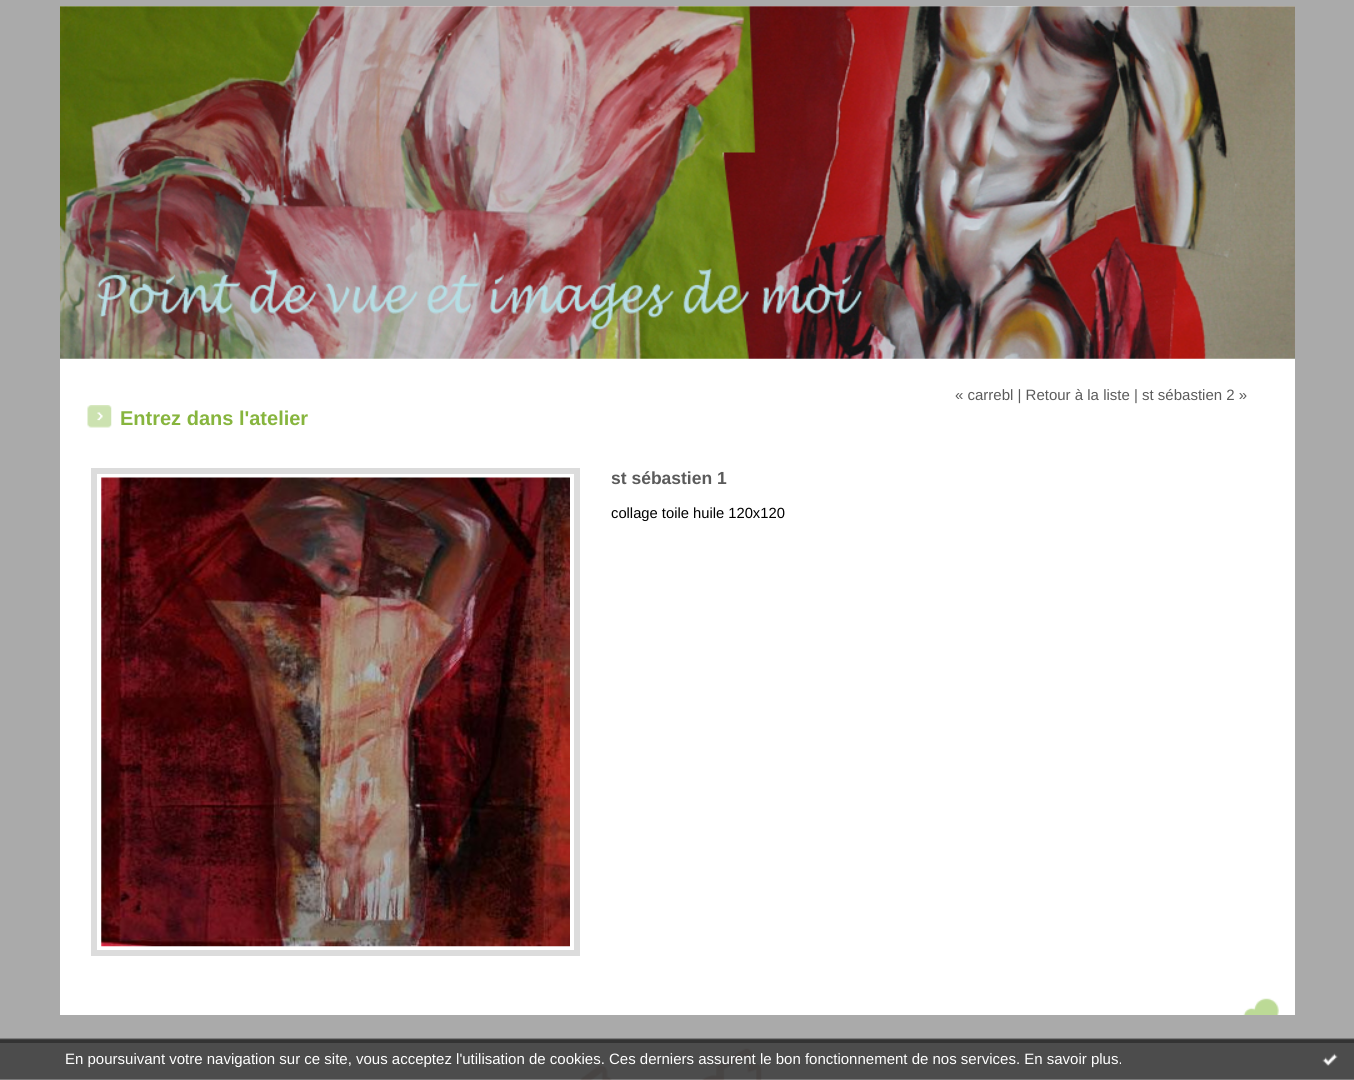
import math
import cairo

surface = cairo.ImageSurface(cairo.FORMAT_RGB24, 1354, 1080)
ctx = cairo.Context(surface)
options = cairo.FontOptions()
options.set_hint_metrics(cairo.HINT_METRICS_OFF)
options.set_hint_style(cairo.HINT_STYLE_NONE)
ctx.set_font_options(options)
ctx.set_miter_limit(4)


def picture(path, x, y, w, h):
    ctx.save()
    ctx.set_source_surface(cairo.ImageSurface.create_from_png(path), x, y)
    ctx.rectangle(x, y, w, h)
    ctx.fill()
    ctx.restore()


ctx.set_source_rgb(0.667, 0.667, 0.667)
ctx.paint()
ctx.set_source_rgb(1, 1, 1)
ctx.rectangle(60, 6, 1235, 1009)
ctx.fill()
picture("img1.png", 1243, 998, 36, 17)
picture("img2.png", 60, 6, 1235, 353)
ctx.select_font_face("Liberation Sans")
ctx.set_font_size(15)
ctx.set_source_rgb(0.357, 0.357, 0.357)
ctx.move_to(955, 400)
ctx.show_text("« carrebl | Retour à la liste | st sébastien 2 »")
picture("img3.png", 87, 405, 25, 23)
ctx.select_font_face("Liberation Sans", cairo.FONT_SLANT_NORMAL, cairo.FONT_WEIGHT_BOLD)
ctx.set_font_size(20)
ctx.set_source_rgb(0.529, 0.71, 0.243)
ctx.move_to(120, 425)
ctx.show_text("Entrez dans l'atelier")
ctx.rectangle(94, 471, 483, 482)
ctx.set_source_rgb(0.863, 0.863, 0.863)
ctx.set_line_width(6)
ctx.stroke()
picture("img4.png", 101, 477, 469, 470)
ctx.set_font_size(17.5)
ctx.set_source_rgb(0.357, 0.357, 0.357)
ctx.move_to(611, 484)
ctx.show_text("st sébastien 1")
ctx.select_font_face("Liberation Sans")
ctx.set_font_size(14.75)
ctx.set_source_rgb(0, 0, 0)
ctx.move_to(611, 518)
ctx.show_text("collage toile huile 120x120")
ctx.set_source_rgb(1, 1, 1)
ctx.rectangle(0, 1043, 1354, 37)
ctx.fill()
picture("img5.png", 580, 1048, 182, 32)
picture("img6.png", 0, 1038, 1354, 42)
ctx.set_font_size(15)
ctx.move_to(65, 1064)
ctx.show_text("En poursuivant votre navigation sur ce site, vous acceptez l'utilisation de cookies. Ces derniers assurent le bon fonctionnement de nos services. En savoir plus.")
picture("img7.png", 1322, 1053, 16, 13)
surface.write_to_png("page.png")
